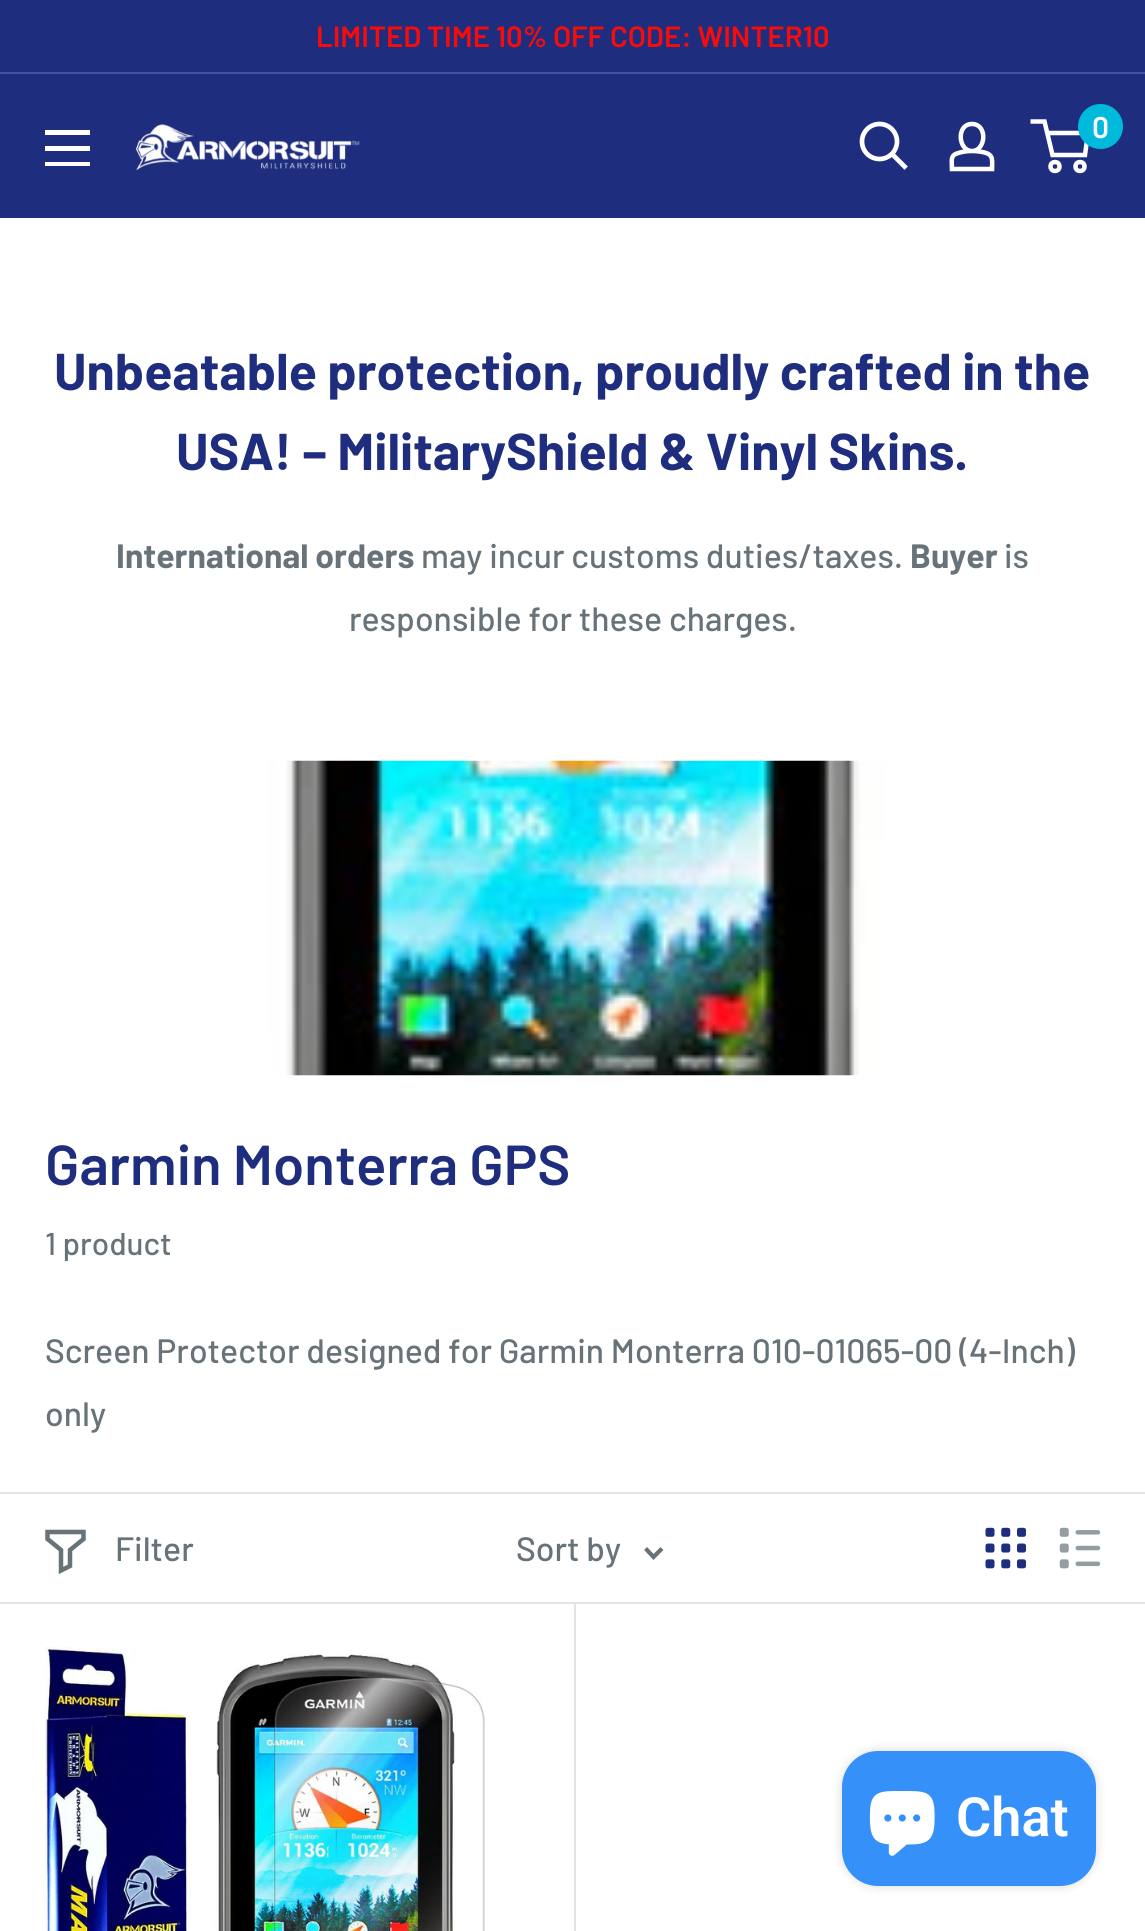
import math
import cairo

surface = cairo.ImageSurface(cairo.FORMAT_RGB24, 1145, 1931)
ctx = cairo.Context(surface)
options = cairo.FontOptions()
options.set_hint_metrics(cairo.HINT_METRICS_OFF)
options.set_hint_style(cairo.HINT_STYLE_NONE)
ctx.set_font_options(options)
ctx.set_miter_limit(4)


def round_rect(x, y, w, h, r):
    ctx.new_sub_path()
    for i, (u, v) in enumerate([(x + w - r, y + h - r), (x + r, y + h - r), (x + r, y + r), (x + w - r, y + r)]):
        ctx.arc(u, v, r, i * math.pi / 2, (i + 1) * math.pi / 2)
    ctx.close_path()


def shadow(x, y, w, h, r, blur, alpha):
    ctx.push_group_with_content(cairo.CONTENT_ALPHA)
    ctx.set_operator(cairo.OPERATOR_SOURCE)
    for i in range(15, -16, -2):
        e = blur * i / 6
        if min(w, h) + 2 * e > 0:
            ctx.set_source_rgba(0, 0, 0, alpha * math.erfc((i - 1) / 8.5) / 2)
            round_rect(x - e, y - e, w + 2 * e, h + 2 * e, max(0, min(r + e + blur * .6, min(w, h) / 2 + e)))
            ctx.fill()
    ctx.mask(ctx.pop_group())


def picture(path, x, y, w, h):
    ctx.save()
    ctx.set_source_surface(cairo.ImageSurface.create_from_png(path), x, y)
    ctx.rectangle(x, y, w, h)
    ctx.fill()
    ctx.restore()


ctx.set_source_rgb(1, 1, 1)
ctx.paint()
ctx.set_source_rgb(0.118, 0.176, 0.49)
ctx.rectangle(0, 0, 1145, 72)
ctx.fill()
ctx.set_source_rgb(0.275, 0.329, 0.624)
ctx.rectangle(0, 72, 1145, 2)
ctx.fill()
ctx.select_font_face("Barlow SemiBold")
ctx.set_font_size(29.25)
ctx.set_source_rgb(0.98, 0.043, 0.043)
ctx.move_to(316, 47)
ctx.show_text("LIMITED TIME 10% OFF CODE: WINTER10")
ctx.set_source_rgb(0.118, 0.176, 0.49)
ctx.rectangle(0, 74, 1145, 144)
ctx.fill()
ctx.set_source_rgb(1, 1, 1)
ctx.set_fill_rule(cairo.FILL_RULE_EVEN_ODD)
ctx.new_path()
ctx.move_to(45, 162)
ctx.line_to(90, 162)
ctx.line_to(90, 166)
ctx.line_to(45, 166)
ctx.close_path()
ctx.move_to(45, 130)
ctx.line_to(90, 130)
ctx.line_to(90, 135)
ctx.line_to(45, 135)
ctx.close_path()
ctx.move_to(45, 146)
ctx.line_to(90, 146)
ctx.line_to(90, 151)
ctx.line_to(45, 151)
ctx.close_path()
ctx.fill()
picture("img1.png", 135, 124, 225, 47)
ctx.new_path()
ctx.move_to(904.5, 166.5)
ctx.line_to(892.5, 154.5)
ctx.set_line_width(4.7)
ctx.set_line_cap(cairo.LINE_CAP_SQUARE)
ctx.stroke()
ctx.arc(879.5, 141.5, 17.5, 0, 2 * math.pi)
ctx.set_line_cap(cairo.LINE_CAP_BUTT)
ctx.stroke()
ctx.new_path()
ctx.move_to(972, 151)
ctx.curve_to(976, 151, 980.5, 151.5, 984.5, 152.5)
ctx.curve_to(994, 155, 992, 160.5, 992, 169)
ctx.line_to(952, 169)
ctx.curve_to(952, 159.5, 949.5, 155, 960, 152.5)
ctx.curve_to(964, 151.5, 968, 151, 972, 151)
ctx.close_path()
ctx.move_to(972, 151)
ctx.curve_to(958, 151, 956, 124, 972, 124)
ctx.curve_to(988, 124, 986, 151, 972, 151)
ctx.close_path()
ctx.set_line_width(4.5)
ctx.stroke()
ctx.arc(1055, 166.5, 4.5, 0, 2 * math.pi)
ctx.stroke()
ctx.arc(1080, 166.5, 4.5, 0, 2 * math.pi)
ctx.stroke()
ctx.new_path()
ctx.move_to(1047, 133)
ctx.line_to(1088, 133)
ctx.line_to(1085, 155)
ctx.line_to(1052.5, 155)
ctx.line_to(1044.5, 121.5)
ctx.line_to(1030.5, 121.5)
ctx.stroke()
ctx.set_source_rgb(0, 0.729, 0.859)
ctx.arc(1100.5, 126.5, 22.5, 0, 2 * math.pi)
ctx.fill()
ctx.set_font_size(30)
ctx.set_source_rgb(1, 1, 1)
ctx.move_to(1092, 138)
ctx.show_text("0")
ctx.select_font_face("Barlow", cairo.FONT_SLANT_NORMAL, cairo.FONT_WEIGHT_BOLD)
ctx.set_font_size(51.75)
ctx.set_source_rgb(0.118, 0.176, 0.49)
ctx.move_to(54, 390)
ctx.show_text("Unbeatable protection, proudly crafted in the")
ctx.move_to(176, 470)
ctx.show_text("USA! – MilitaryShield & Vinyl Skins.")
ctx.set_font_size(33.75)
ctx.set_source_rgb(0.404, 0.447, 0.475)
ctx.move_to(116, 568)
ctx.show_text("International orders")
ctx.select_font_face("Barlow Medium")
ctx.move_to(421, 568)
ctx.show_text("may incur customs duties/taxes.")
ctx.select_font_face("Barlow", cairo.FONT_SLANT_NORMAL, cairo.FONT_WEIGHT_BOLD)
ctx.move_to(910, 568)
ctx.show_text("Buyer")
ctx.select_font_face("Barlow Medium")
ctx.move_to(1004, 568)
ctx.show_text("is")
ctx.move_to(349, 631)
ctx.show_text("responsible for these charges.")
picture("img2.png", 0, 760, 1145, 316)
ctx.select_font_face("Barlow SemiBold")
ctx.set_font_size(56.25)
ctx.set_source_rgb(0.118, 0.176, 0.49)
ctx.move_to(45, 1185)
ctx.show_text("Garmin Monterra GPS")
ctx.select_font_face("Barlow Medium")
ctx.set_font_size(31.5)
ctx.set_source_rgb(0.404, 0.447, 0.475)
ctx.move_to(45, 1255)
ctx.show_text("1 product")
ctx.set_font_size(33.75)
ctx.move_to(45, 1363)
ctx.show_text("Screen Protector designed for Garmin Monterra 010-01065-00 (4-Inch)")
ctx.move_to(45, 1426)
ctx.show_text("only")
ctx.set_source_rgb(0.882, 0.89, 0.894)
ctx.rectangle(0, 1492, 1145, 2)
ctx.fill()
ctx.set_fill_rule(cairo.FILL_RULE_WINDING)
ctx.new_path()
ctx.move_to(2, 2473)
ctx.line_to(576, 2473)
ctx.line_to(576, 1602)
ctx.line_to(574, 1602)
ctx.line_to(574, 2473)
ctx.close_path()
ctx.fill()
ctx.rectangle(0, 1602, 1145, 2)
ctx.fill()
ctx.new_path()
ctx.move_to(83.5, 1539)
ctx.line_to(70, 1550)
ctx.line_to(70, 1566)
ctx.line_to(61, 1570.5)
ctx.line_to(61, 1550)
ctx.line_to(47.5, 1539)
ctx.line_to(47.5, 1532)
ctx.line_to(83.5, 1532)
ctx.close_path()
ctx.set_source_rgb(0.404, 0.447, 0.475)
ctx.set_line_cap(cairo.LINE_CAP_SQUARE)
ctx.stroke()
ctx.move_to(115, 1561)
ctx.show_text("Filter")
ctx.move_to(516, 1561)
ctx.show_text("Sort by")
ctx.new_path()
ctx.move_to(660.5, 1550)
ctx.line_to(653.5, 1557)
ctx.line_to(647, 1550)
ctx.set_line_width(4.2)
ctx.stroke()
picture("img3.png", 985, 1527, 41, 42)
picture("img4.png", 1059, 1527, 42, 42)
picture("img5.png", 45, 1647, 440, 284)
ctx.set_source_rgb(0, 0, 0)
shadow(842, 1751, 254, 135, 36, 5.5, 0.15)
ctx.set_source_rgb(0.212, 0.565, 0.98)
round_rect(842, 1751, 254, 135, 36)
ctx.fill()
picture("img6.png", 869, 1791, 66, 65)
ctx.select_font_face("Roboto SemiBold")
ctx.set_font_size(54)
ctx.set_source_rgb(1, 1, 1)
ctx.move_to(956, 1836)
ctx.show_text("Chat")
surface.write_to_png("page.png")
